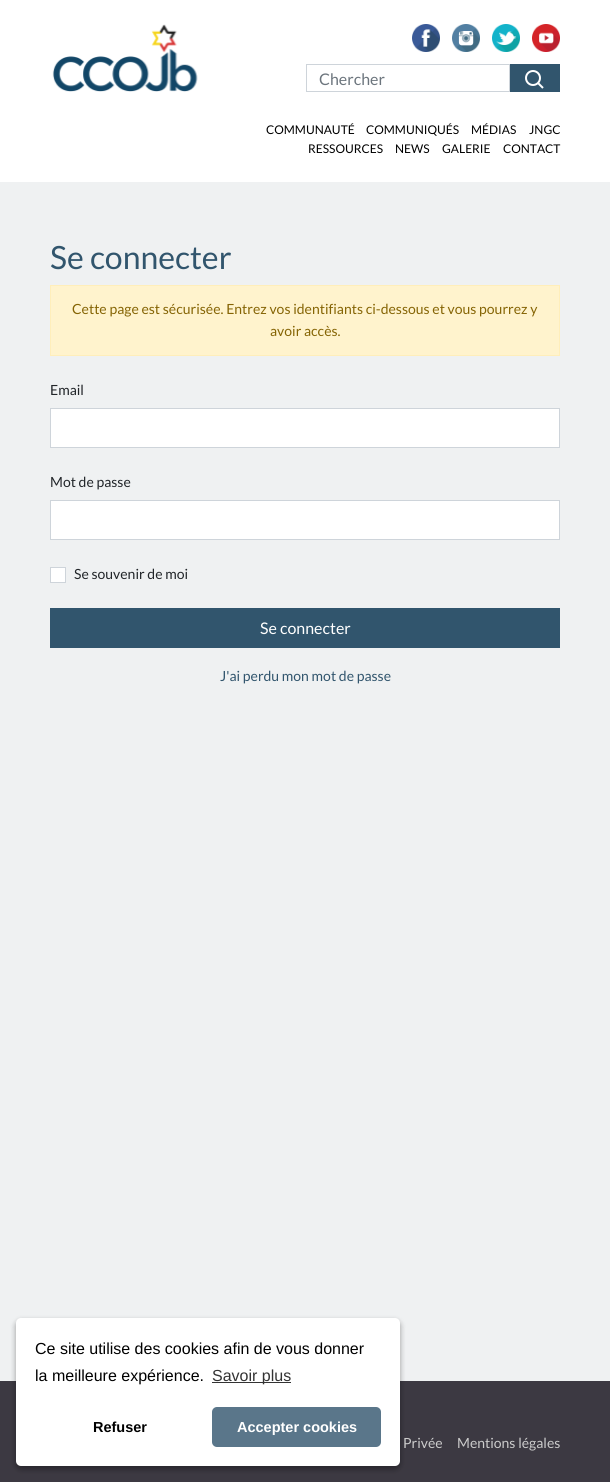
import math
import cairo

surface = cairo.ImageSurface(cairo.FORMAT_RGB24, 610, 1482)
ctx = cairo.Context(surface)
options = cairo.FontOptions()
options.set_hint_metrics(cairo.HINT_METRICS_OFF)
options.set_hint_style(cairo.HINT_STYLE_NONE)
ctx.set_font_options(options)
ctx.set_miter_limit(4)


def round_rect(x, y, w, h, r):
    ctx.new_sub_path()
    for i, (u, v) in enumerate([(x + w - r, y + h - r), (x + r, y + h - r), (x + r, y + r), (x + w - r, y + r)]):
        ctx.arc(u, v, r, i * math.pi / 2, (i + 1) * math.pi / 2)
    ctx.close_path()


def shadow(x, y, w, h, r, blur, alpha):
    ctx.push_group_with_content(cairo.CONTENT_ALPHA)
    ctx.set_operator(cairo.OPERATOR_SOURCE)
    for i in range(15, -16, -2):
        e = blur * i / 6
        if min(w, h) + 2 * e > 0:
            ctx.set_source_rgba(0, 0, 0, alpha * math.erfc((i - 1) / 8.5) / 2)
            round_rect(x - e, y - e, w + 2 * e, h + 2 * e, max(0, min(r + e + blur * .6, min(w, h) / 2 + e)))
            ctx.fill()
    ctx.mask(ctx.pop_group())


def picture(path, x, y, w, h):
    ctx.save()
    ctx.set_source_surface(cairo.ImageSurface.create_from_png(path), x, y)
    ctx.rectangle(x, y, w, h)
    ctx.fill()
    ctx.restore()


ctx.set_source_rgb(0.937, 0.945, 0.949)
ctx.paint()
ctx.set_source_rgb(1, 1, 1)
ctx.rectangle(0, 0, 610, 182)
ctx.fill()
picture("img1.png", 52, 24, 146, 68)
picture("img2.png", 412, 24, 28, 28)
picture("img3.png", 452, 24, 28, 28)
picture("img4.png", 492, 24, 28, 28)
picture("img5.png", 532, 24, 28, 28)
ctx.rectangle(306.5, 64.5, 203, 27)
ctx.set_source_rgb(0.808, 0.831, 0.855)
ctx.set_line_width(1)
ctx.stroke()
ctx.select_font_face("Lato")
ctx.set_font_size(16)
ctx.set_source_rgb(0.424, 0.459, 0.49)
ctx.move_to(319, 85)
ctx.show_text("Chercher")
ctx.set_source_rgb(0.192, 0.333, 0.427)
ctx.rectangle(510, 64, 50, 28)
ctx.fill()
picture("img6.png", 525, 70, 19, 19)
ctx.set_font_size(12)
ctx.set_source_rgb(0, 0, 0)
ctx.move_to(266, 134)
ctx.show_text("COMMUNAUTÉ")
ctx.move_to(366, 134)
ctx.show_text("COMMUNIQUÉS")
ctx.move_to(471, 134)
ctx.show_text("MÉDIAS")
ctx.move_to(529, 134)
ctx.show_text("JNGC")
ctx.move_to(308, 153)
ctx.show_text("RESSOURCES")
ctx.move_to(395, 153)
ctx.show_text("NEWS")
ctx.move_to(442, 153)
ctx.show_text("GALERIE")
ctx.move_to(503, 153)
ctx.show_text("CONTACT")
ctx.set_font_size(32)
ctx.set_source_rgb(0.192, 0.333, 0.427)
ctx.move_to(50, 269)
ctx.show_text("Se connecter")
ctx.set_source_rgb(1, 0.953, 0.804)
ctx.rectangle(50.5, 285.5, 509, 70)
ctx.fill_preserve()
ctx.set_source_rgb(1, 0.933, 0.729)
ctx.stroke()
ctx.set_font_size(14)
ctx.set_source_rgb(0.522, 0.392, 0.016)
ctx.move_to(72, 314)
ctx.show_text("Cette page est sécurisée. Entrez vos identifiants ci-dessous et vous pourrez y")
ctx.move_to(270, 336)
ctx.show_text("avoir accès.")
ctx.set_source_rgb(0.129, 0.145, 0.161)
ctx.move_to(50, 395)
ctx.show_text("Email")
ctx.set_source_rgb(1, 1, 1)
ctx.rectangle(50.5, 408.5, 509, 39)
ctx.fill_preserve()
ctx.set_source_rgb(0.808, 0.831, 0.855)
ctx.stroke()
ctx.set_source_rgb(0.129, 0.145, 0.161)
ctx.move_to(50, 487)
ctx.show_text("Mot de passe")
ctx.set_source_rgb(1, 1, 1)
ctx.rectangle(50.5, 500.5, 509, 39)
ctx.fill_preserve()
ctx.set_source_rgb(0.808, 0.831, 0.855)
ctx.stroke()
ctx.set_source_rgb(1, 1, 1)
ctx.rectangle(50.5, 567.5, 15, 15)
ctx.fill_preserve()
ctx.set_source_rgb(0.808, 0.831, 0.855)
ctx.stroke()
ctx.set_source_rgb(0.129, 0.145, 0.161)
ctx.move_to(74, 579)
ctx.show_text("Se souvenir de moi")
ctx.set_source_rgb(0.192, 0.333, 0.427)
ctx.rectangle(50, 608, 510, 40)
ctx.fill()
ctx.set_font_size(16)
ctx.set_source_rgb(1, 1, 1)
ctx.move_to(260, 634)
ctx.show_text("Se connecter")
ctx.set_font_size(14)
ctx.set_source_rgb(0.192, 0.333, 0.427)
ctx.move_to(220, 681)
ctx.show_text("J'ai perdu mon mot de passe")
ctx.set_source_rgb(0.235, 0.224, 0.259)
ctx.rectangle(0, 1381, 610, 101)
ctx.fill()
ctx.set_source_rgb(0, 0, 0)
shadow(16, 1321, 384, 148, 5, 3, 0.23)
shadow(16, 1321, 384, 148, 5, 3, 0.16)
ctx.set_source_rgb(1, 1, 1)
round_rect(16, 1318, 384, 148, 5)
ctx.fill()
ctx.select_font_face("Liberation Sans")
ctx.set_font_size(16)
ctx.set_source_rgb(0, 0, 0)
ctx.move_to(35, 1354)
ctx.show_text("Ce site utilise des cookies afin de vous donner")
ctx.move_to(35, 1381)
ctx.show_text("la meilleure expérience.")
ctx.set_source_rgb(0.2, 0.2, 0.2)
ctx.rectangle(212, 1382, 79, 1)
ctx.fill()
ctx.move_to(212, 1381)
ctx.show_text("Savoir plus")
ctx.select_font_face("Liberation Sans", cairo.FONT_SLANT_NORMAL, cairo.FONT_WEIGHT_BOLD)
ctx.set_font_size(14.5)
ctx.set_source_rgb(0, 0, 0)
ctx.move_to(93, 1432)
ctx.show_text("Refuser")
ctx.set_source_rgb(0.353, 0.463, 0.541)
round_rect(212, 1407, 169, 40, 5)
ctx.fill()
ctx.set_source_rgb(1, 1, 1)
ctx.move_to(237, 1432)
ctx.show_text("Accepter cookies")
ctx.select_font_face("Lato")
ctx.set_font_size(14)
ctx.set_source_rgb(0.8, 0.8, 0.8)
ctx.move_to(403, 1448)
ctx.show_text("Privée")
ctx.move_to(457, 1448)
ctx.show_text("Mentions légales")
surface.write_to_png("page.png")
